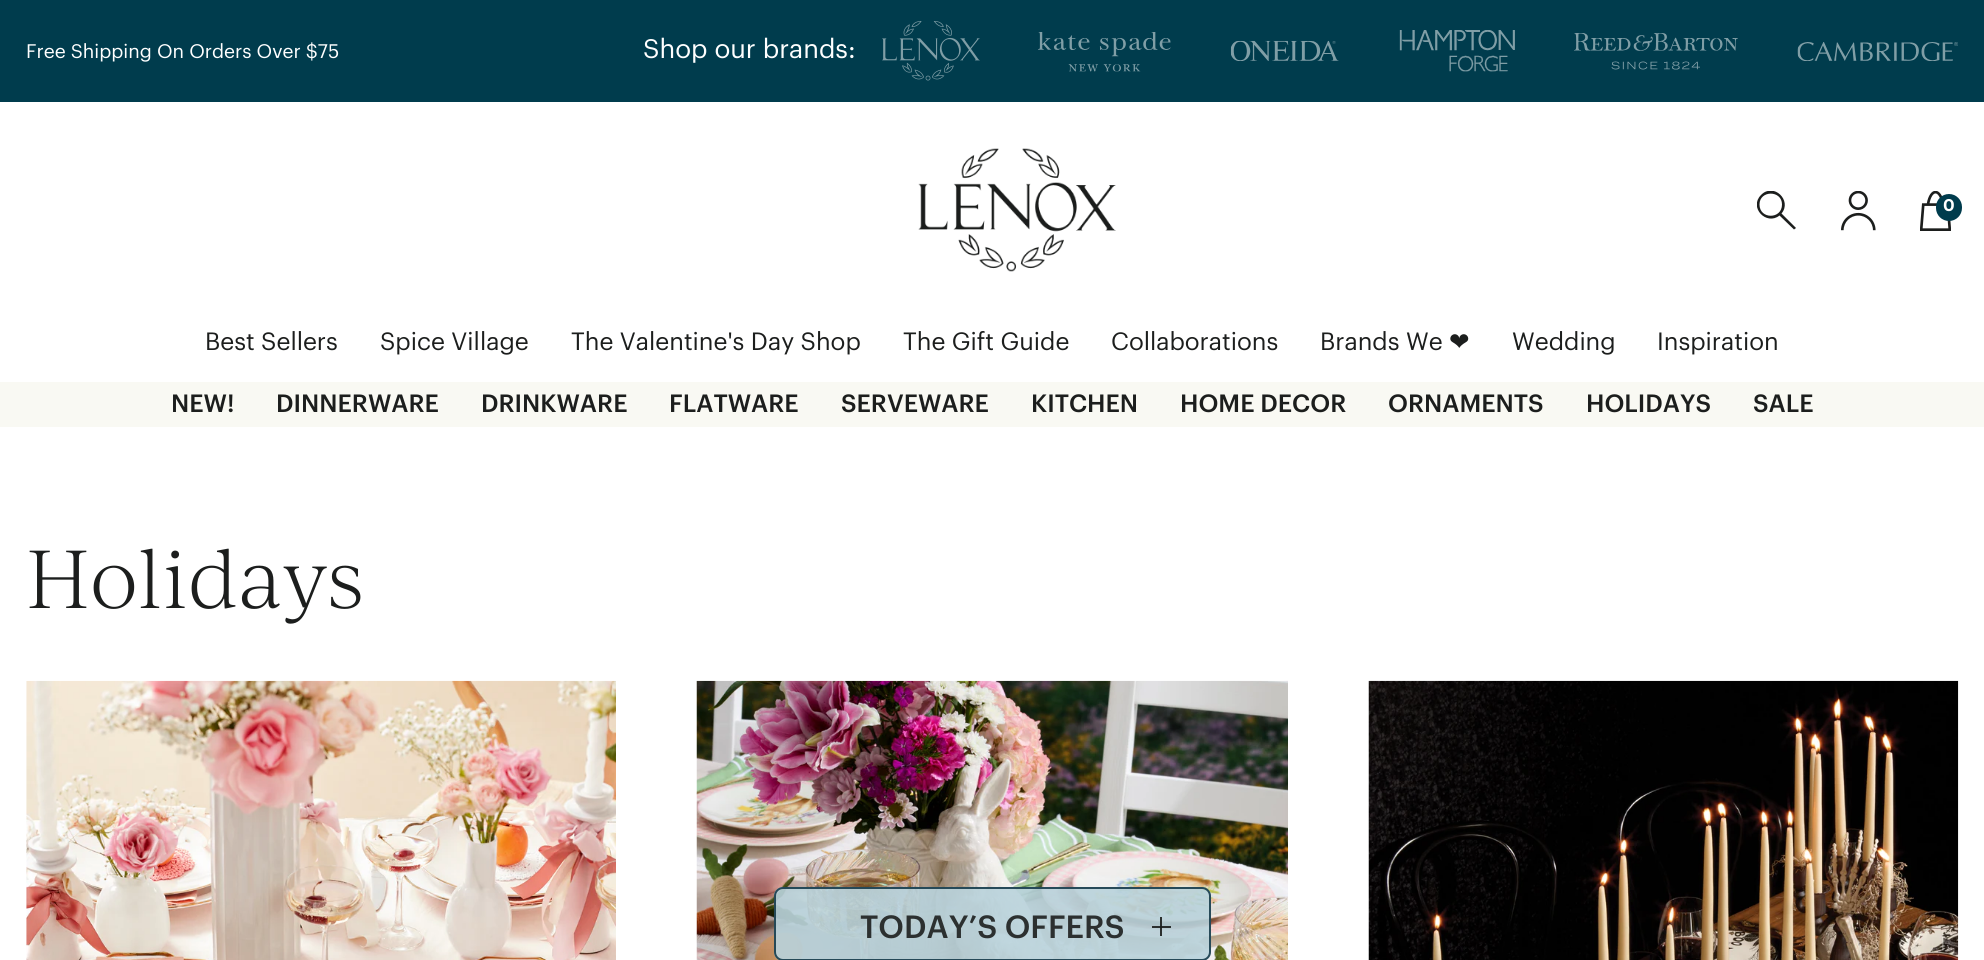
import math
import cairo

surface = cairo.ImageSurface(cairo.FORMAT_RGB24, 1984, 960)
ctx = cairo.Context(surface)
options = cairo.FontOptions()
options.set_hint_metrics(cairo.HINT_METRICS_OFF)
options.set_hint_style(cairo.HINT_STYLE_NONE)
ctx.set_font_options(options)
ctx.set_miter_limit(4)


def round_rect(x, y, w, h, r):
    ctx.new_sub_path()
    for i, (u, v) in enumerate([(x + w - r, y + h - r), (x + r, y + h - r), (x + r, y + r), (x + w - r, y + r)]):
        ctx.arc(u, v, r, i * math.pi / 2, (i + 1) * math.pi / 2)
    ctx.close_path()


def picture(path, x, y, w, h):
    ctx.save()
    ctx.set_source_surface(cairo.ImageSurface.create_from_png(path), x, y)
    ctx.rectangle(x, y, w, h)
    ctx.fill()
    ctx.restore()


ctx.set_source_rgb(1, 1, 1)
ctx.paint()
ctx.set_source_rgb(0, 0.235, 0.302)
ctx.rectangle(0, 0, 1984, 102)
ctx.fill()
ctx.select_font_face("Graphik", cairo.FONT_SLANT_ITALIC)
ctx.set_font_size(19.25)
ctx.set_source_rgb(1, 1, 1)
ctx.move_to(26, 58)
ctx.show_text("Free Shipping On Orders Over $75")
ctx.set_font_size(26.25)
ctx.move_to(643, 58)
ctx.show_text("Shop our brands:")
picture("img1.png", 882, 21, 98, 60)
picture("img2.png", 1038, 32, 133, 40)
picture("img3.png", 1230, 40, 109, 21)
picture("img4.png", 1399, 30, 116, 42)
picture("img5.png", 1574, 33, 164, 37)
picture("img6.png", 1797, 42, 161, 19)
picture("img7.png", 918, 148, 198, 124)
ctx.save()
ctx.rectangle(1757, 191, 40, 40)
ctx.clip()
ctx.set_source_rgb(0.11, 0.118, 0.114)
ctx.new_path()
ctx.move_to(1794, 229.5)
ctx.line_to(1779.5, 215.5)
ctx.curve_to(1766.5, 226, 1748.5, 207.5, 1761, 195)
ctx.curve_to(1773.5, 182, 1792.5, 200.5, 1781.5, 213.5)
ctx.line_to(1796, 228)
ctx.close_path()
ctx.move_to(1759.5, 204.5)
ctx.curve_to(1759.5, 219.5, 1782, 219.5, 1782, 204.5)
ctx.curve_to(1782, 190, 1759.5, 190, 1759.5, 204.5)
ctx.close_path()
ctx.fill()
ctx.restore()
picture("img8.png", 1841, 191, 35, 40)
picture("img9.png", 1920, 191, 31, 40)
ctx.set_source_rgb(0, 0.235, 0.302)
round_rect(1936, 194, 26, 27, 13)
ctx.fill()
ctx.select_font_face("Graphik", cairo.FONT_SLANT_NORMAL, cairo.FONT_WEIGHT_BOLD)
ctx.set_font_size(16)
ctx.set_source_rgb(1, 1, 1)
ctx.move_to(1943, 211)
ctx.show_text("0")
ctx.select_font_face("Graphik", cairo.FONT_SLANT_ITALIC)
ctx.set_font_size(24.5)
ctx.set_source_rgb(0.11, 0.118, 0.114)
ctx.move_to(205, 350)
ctx.show_text("Best Sellers")
ctx.move_to(380, 350)
ctx.show_text("Spice Village")
ctx.move_to(571, 350)
ctx.show_text("The Valentine's Day Shop")
ctx.move_to(903, 350)
ctx.show_text("The Gift Guide")
ctx.move_to(1111, 350)
ctx.show_text("Collaborations")
ctx.move_to(1320, 350)
ctx.show_text("Brands We")
ctx.select_font_face("DejaVu Sans")
ctx.move_to(1449, 350)
ctx.show_text("❤")
ctx.select_font_face("Graphik", cairo.FONT_SLANT_ITALIC)
ctx.move_to(1512, 350)
ctx.show_text("Wedding")
ctx.move_to(1657, 350)
ctx.show_text("Inspiration")
ctx.set_source_rgb(0.973, 0.973, 0.953)
ctx.rectangle(0, 382, 1984, 45)
ctx.fill()
ctx.select_font_face("Graphik Medium")
ctx.set_source_rgb(0.11, 0.118, 0.114)
ctx.move_to(171, 412)
ctx.show_text("NEW!")
ctx.move_to(276, 412)
ctx.show_text("DINNERWARE")
ctx.move_to(481, 412)
ctx.show_text("DRINKWARE")
ctx.move_to(669, 412)
ctx.show_text("FLATWARE")
ctx.move_to(841, 412)
ctx.show_text("SERVEWARE")
ctx.move_to(1031, 412)
ctx.show_text("KITCHEN")
ctx.move_to(1180, 412)
ctx.show_text("HOME DECOR")
ctx.move_to(1388, 412)
ctx.show_text("ORNAMENTS")
ctx.move_to(1586, 412)
ctx.show_text("HOLIDAYS")
ctx.move_to(1753, 412)
ctx.show_text("SALE")
ctx.select_font_face("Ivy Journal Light")
ctx.set_font_size(78.75)
ctx.move_to(26, 608)
ctx.show_text("Holidays")
picture("img10.png", 26, 680, 590, 280)
picture("img11.png", 696, 680, 592, 280)
picture("img12.png", 1368, 680, 591, 280)
ctx.set_source_rgba(0.725, 0.827, 0.863, 0.9)
round_rect(774, 887, 437, 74, 9)
ctx.fill()
round_rect(775, 888, 435, 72, 8)
ctx.set_source_rgba(0.09, 0.231, 0.294, 0.9)
ctx.stroke()
ctx.select_font_face("Graphik Medium")
ctx.set_font_size(31.5)
ctx.set_source_rgb(0.173, 0.188, 0.188)
ctx.move_to(860, 938)
ctx.show_text("TODAY’S OFFERS")
ctx.set_source_rgba(0.11, 0.118, 0.114, 0.9)
ctx.rectangle(1152, 926, 19, 2)
ctx.fill()
ctx.rectangle(1160, 917, 2, 19)
ctx.fill()
surface.write_to_png("page.png")
